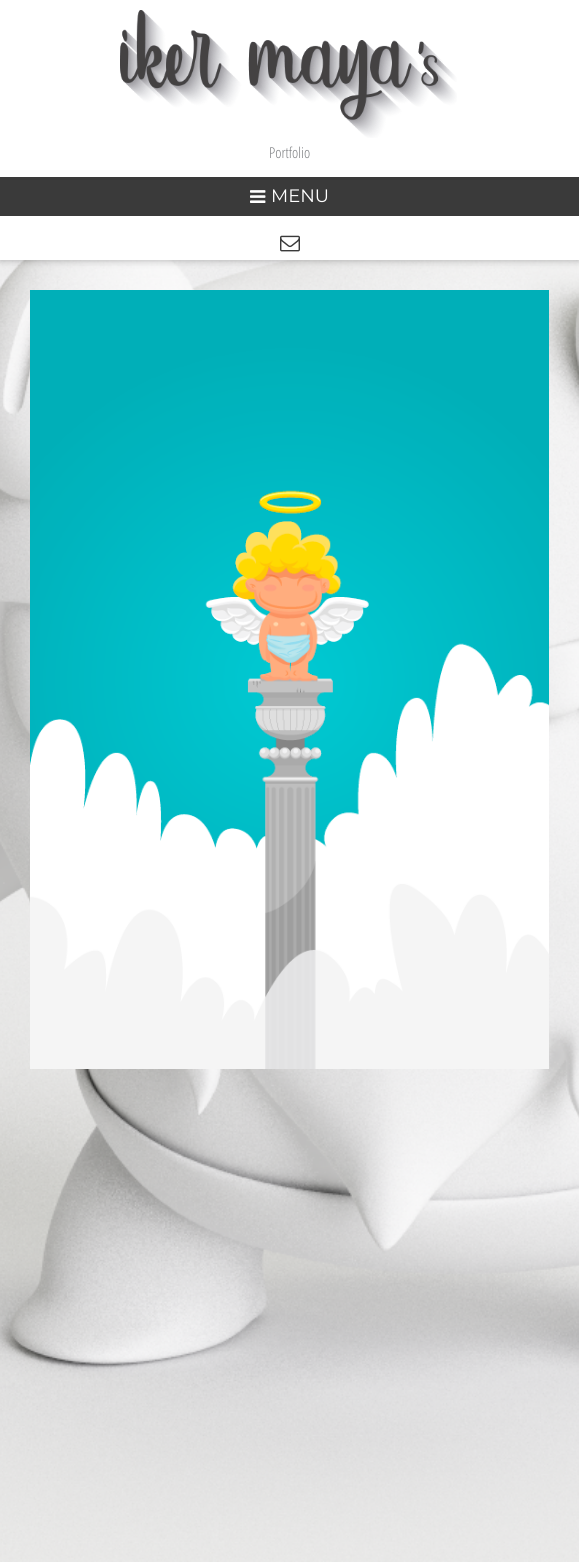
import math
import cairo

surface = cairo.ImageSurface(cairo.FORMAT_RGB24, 579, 1562)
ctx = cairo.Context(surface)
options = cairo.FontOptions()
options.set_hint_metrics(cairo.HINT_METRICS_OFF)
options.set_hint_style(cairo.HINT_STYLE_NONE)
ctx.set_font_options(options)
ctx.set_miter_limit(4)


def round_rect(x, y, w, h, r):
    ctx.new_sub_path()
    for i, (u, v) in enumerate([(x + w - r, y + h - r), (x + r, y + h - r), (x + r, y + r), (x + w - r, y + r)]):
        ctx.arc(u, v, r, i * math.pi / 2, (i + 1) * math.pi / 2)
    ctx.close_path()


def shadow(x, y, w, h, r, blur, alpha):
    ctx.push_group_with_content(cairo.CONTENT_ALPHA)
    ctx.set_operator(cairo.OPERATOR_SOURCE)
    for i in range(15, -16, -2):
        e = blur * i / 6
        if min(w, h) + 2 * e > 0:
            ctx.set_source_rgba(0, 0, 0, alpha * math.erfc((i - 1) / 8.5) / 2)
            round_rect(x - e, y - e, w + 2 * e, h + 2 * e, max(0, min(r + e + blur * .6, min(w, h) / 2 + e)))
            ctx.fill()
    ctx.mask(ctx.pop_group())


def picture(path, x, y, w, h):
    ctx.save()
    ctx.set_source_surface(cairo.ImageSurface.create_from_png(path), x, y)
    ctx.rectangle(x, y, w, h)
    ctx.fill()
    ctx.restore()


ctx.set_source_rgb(1, 1, 1)
ctx.paint()
picture("img1.png", 0, 260, 579, 1302)
ctx.set_source_rgb(0, 0, 0)
shadow(0, 0, 579, 260, 0, 4, 0.3)
ctx.set_source_rgb(1, 1, 1)
ctx.rectangle(0, 0, 579, 260)
ctx.fill()
picture("img2.png", 120, 10, 337, 128)
ctx.select_font_face("Open Sans Condensed Light")
ctx.set_font_size(15)
ctx.set_source_rgb(0.482, 0.49, 0.502)
ctx.move_to(269, 158)
ctx.show_text("Portfolio")
ctx.set_source_rgb(0.227, 0.227, 0.227)
ctx.rectangle(0, 177, 579, 39)
ctx.fill()
picture("img3.png", 250, 190, 16, 13)
ctx.select_font_face("Montserrat")
ctx.set_font_size(18)
ctx.set_source_rgb(1, 1, 1)
ctx.move_to(271, 202)
ctx.show_text("MENU")
picture("img4.png", 280, 235, 20, 17)
picture("img5.png", 30, 290, 519, 779)
surface.write_to_png("page.png")
